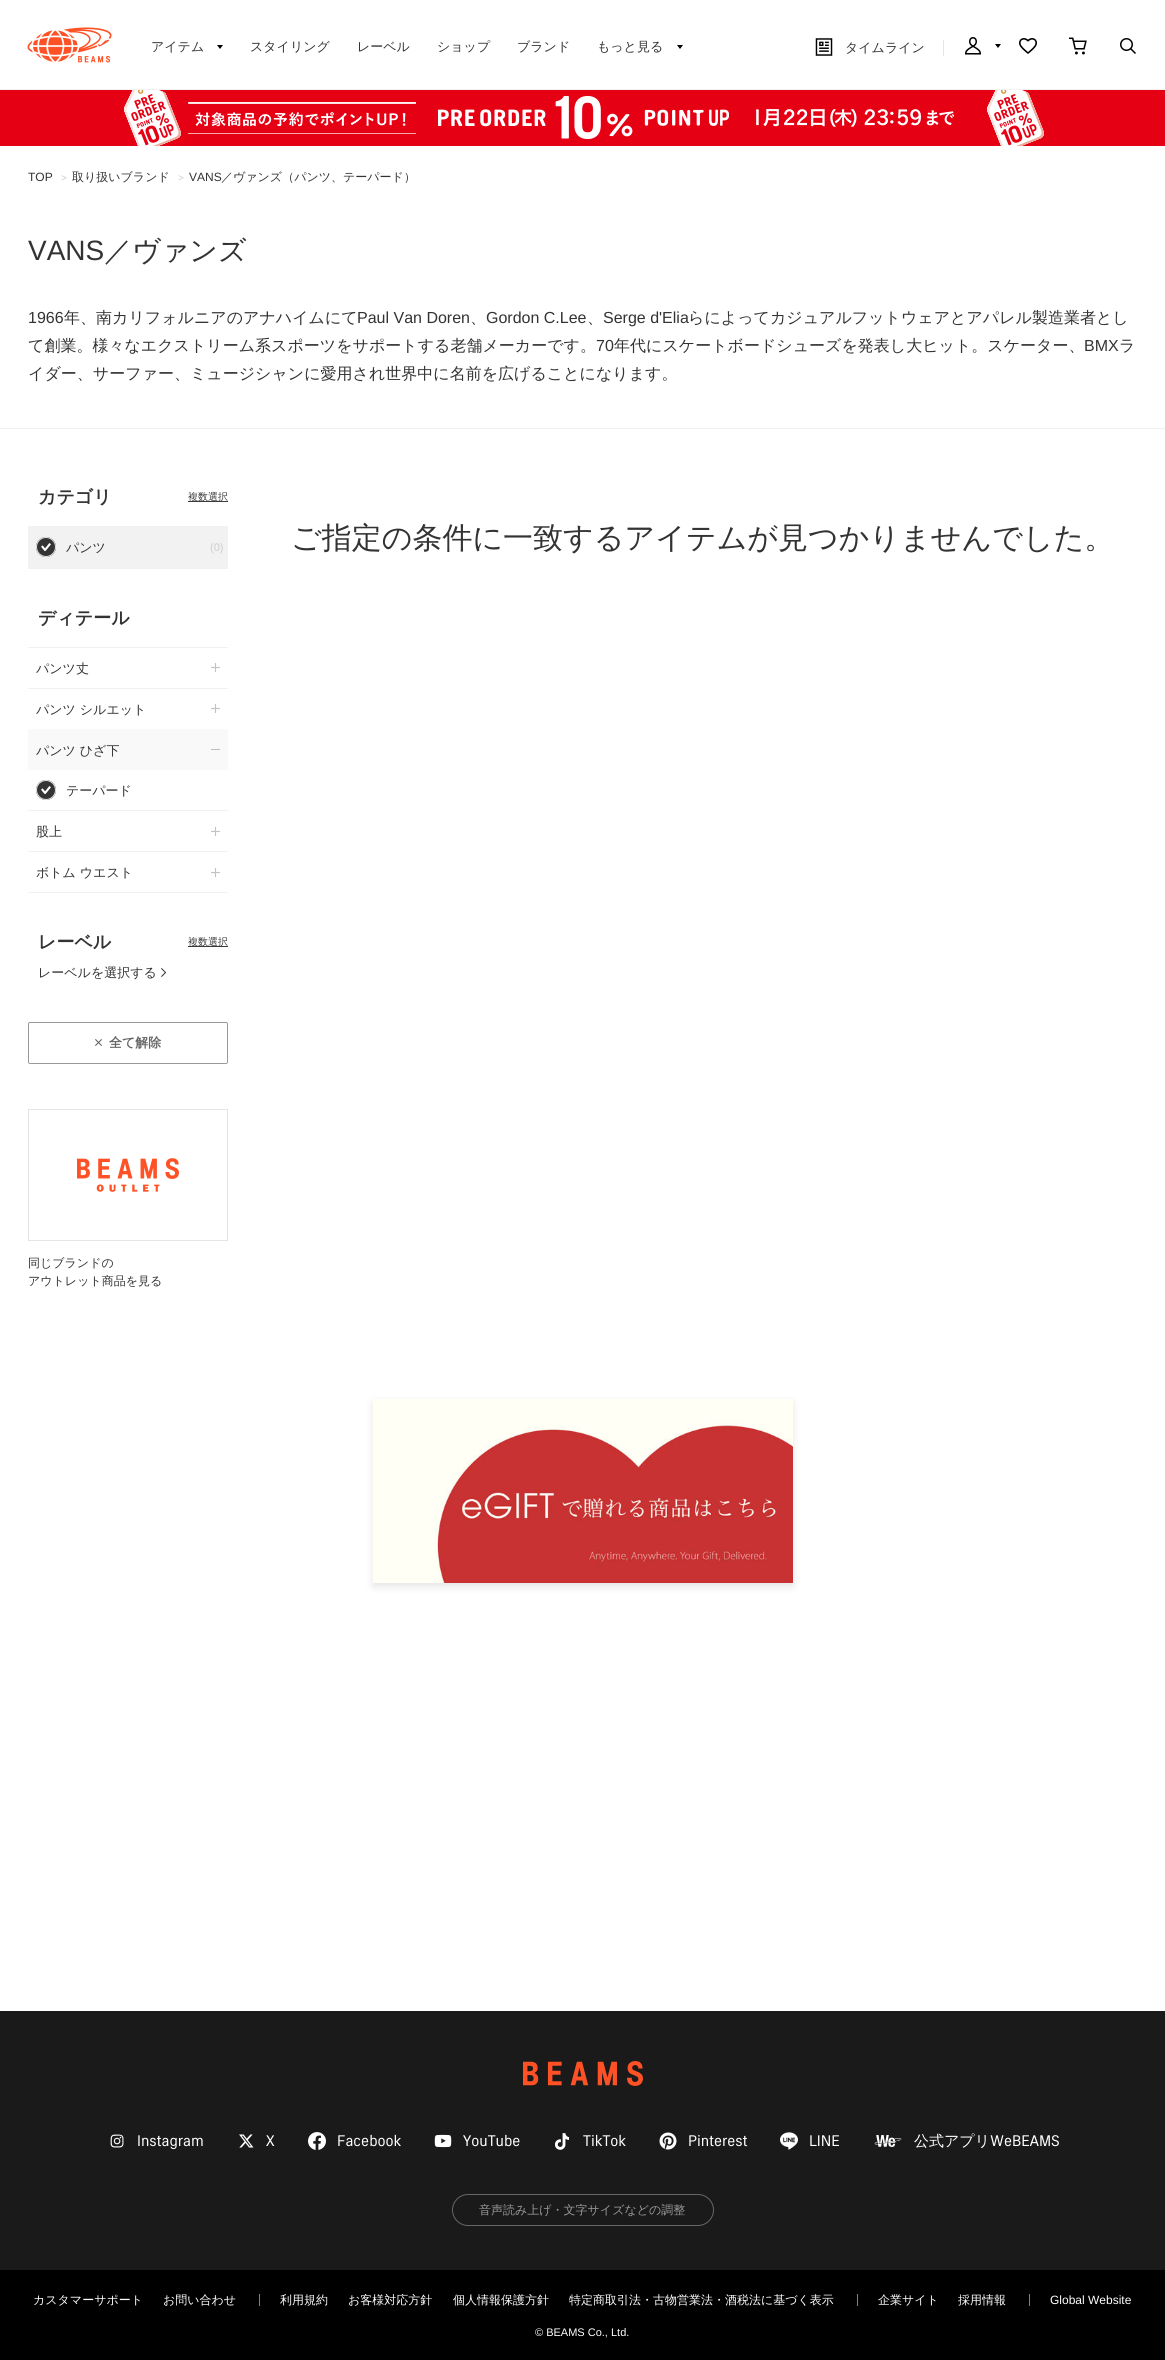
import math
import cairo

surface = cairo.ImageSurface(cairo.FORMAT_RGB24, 1165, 2360)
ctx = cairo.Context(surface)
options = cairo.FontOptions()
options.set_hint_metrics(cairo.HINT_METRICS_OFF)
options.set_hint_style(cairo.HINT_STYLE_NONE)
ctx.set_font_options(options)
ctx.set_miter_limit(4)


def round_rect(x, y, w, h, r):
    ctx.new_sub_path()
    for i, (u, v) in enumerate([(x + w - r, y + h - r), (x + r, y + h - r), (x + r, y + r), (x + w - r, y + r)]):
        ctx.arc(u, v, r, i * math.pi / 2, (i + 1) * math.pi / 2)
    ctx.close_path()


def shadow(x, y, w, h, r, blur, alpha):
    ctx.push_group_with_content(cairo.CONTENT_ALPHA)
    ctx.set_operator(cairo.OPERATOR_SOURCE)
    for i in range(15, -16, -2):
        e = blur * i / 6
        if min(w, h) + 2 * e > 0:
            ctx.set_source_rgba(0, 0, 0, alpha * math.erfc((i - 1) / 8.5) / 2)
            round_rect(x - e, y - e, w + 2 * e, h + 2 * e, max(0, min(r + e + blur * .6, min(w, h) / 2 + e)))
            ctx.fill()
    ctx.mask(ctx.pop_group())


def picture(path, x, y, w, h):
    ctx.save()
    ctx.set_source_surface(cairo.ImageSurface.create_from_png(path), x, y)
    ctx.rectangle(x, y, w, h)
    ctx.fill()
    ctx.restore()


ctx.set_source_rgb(1, 1, 1)
ctx.paint()
ctx.set_source_rgb(0.949, 0.949, 0.949)
ctx.rectangle(0, 89, 1165, 1)
ctx.fill()
picture("img1.png", 27, 27, 85, 36)
ctx.select_font_face("WenQuanYi Zen Hei Medium")
ctx.set_font_size(13)
ctx.set_source_rgb(0.2, 0.2, 0.2)
ctx.move_to(151, 51)
ctx.show_text("アイテム")
ctx.set_source_rgb(0, 0, 0)
ctx.new_path()
ctx.move_to(217, 45)
ctx.line_to(223, 45)
ctx.line_to(220, 49)
ctx.close_path()
ctx.fill()
ctx.set_source_rgb(0.2, 0.2, 0.2)
ctx.move_to(250, 51)
ctx.show_text("スタイリング")
ctx.move_to(357, 51)
ctx.show_text("レーベル")
ctx.move_to(437, 51)
ctx.show_text("ショップ")
ctx.move_to(517, 51)
ctx.show_text("ブランド")
ctx.move_to(597, 51)
ctx.show_text("もっと見る")
ctx.set_source_rgb(0, 0, 0)
ctx.new_path()
ctx.move_to(677, 45)
ctx.line_to(683, 45)
ctx.line_to(680, 49)
ctx.close_path()
ctx.fill()
picture("img2.png", 815, 38, 18, 18)
ctx.set_source_rgb(0.2, 0.2, 0.2)
ctx.move_to(845, 52)
ctx.show_text("タイムライン")
ctx.set_source_rgb(0.902, 0.902, 0.902)
ctx.rectangle(943, 40, 1, 16)
ctx.fill()
picture("img3.png", 965, 37, 16, 18)
ctx.set_source_rgb(0, 0, 0)
ctx.new_path()
ctx.move_to(995, 44)
ctx.line_to(1001, 44)
ctx.line_to(998, 48)
ctx.close_path()
ctx.fill()
picture("img4.png", 1019, 38, 18, 16)
picture("img5.png", 1069, 37, 18, 18)
picture("img6.png", 1120, 38, 16, 16)
ctx.set_source_rgb(0.902, 0, 0.075)
ctx.rectangle(0, 90, 1165, 56)
ctx.fill()
picture("img7.png", 124, 90, 920, 56)
ctx.select_font_face("Liberation Sans")
ctx.set_font_size(12)
ctx.set_source_rgb(0.2, 0.2, 0.2)
ctx.move_to(28, 181)
ctx.show_text("TOP")
ctx.set_font_size(10)
ctx.set_source_rgb(0.8, 0.8, 0.8)
ctx.move_to(61, 181)
ctx.show_text(">")
ctx.select_font_face("WenQuanYi Zen Hei Medium")
ctx.set_font_size(12)
ctx.set_source_rgb(0.2, 0.2, 0.2)
ctx.move_to(72, 181)
ctx.show_text("取り扱いブランド")
ctx.select_font_face("Liberation Sans")
ctx.set_font_size(10)
ctx.set_source_rgb(0.8, 0.8, 0.8)
ctx.move_to(178, 181)
ctx.show_text(">")
ctx.set_font_size(12)
ctx.set_source_rgb(0.2, 0.2, 0.2)
ctx.move_to(189, 181)
ctx.show_text("VANS")
ctx.select_font_face("WenQuanYi Zen Hei Medium")
ctx.move_to(221, 181)
ctx.show_text("／ヴァンズ（パンツ、テーパード）")
ctx.select_font_face("Liberation Sans")
ctx.set_font_size(28)
ctx.move_to(28, 260)
ctx.show_text("VANS")
ctx.select_font_face("WenQuanYi Zen Hei Medium")
ctx.move_to(104, 260)
ctx.show_text("／ヴァンズ")
ctx.select_font_face("Liberation Sans")
ctx.set_font_size(16)
ctx.move_to(28, 323)
ctx.show_text("1966")
ctx.select_font_face("WenQuanYi Zen Hei Medium")
ctx.move_to(64, 323)
ctx.show_text("年、南カリフォルニアのアナハイムにて")
ctx.select_font_face("Liberation Sans")
ctx.move_to(357, 323)
ctx.show_text("Paul Van Doren")
ctx.select_font_face("WenQuanYi Zen Hei Medium")
ctx.move_to(470, 323)
ctx.show_text("、")
ctx.select_font_face("Liberation Sans")
ctx.move_to(486, 323)
ctx.show_text("Gordon C.Lee")
ctx.select_font_face("WenQuanYi Zen Hei Medium")
ctx.move_to(587, 323)
ctx.show_text("、")
ctx.select_font_face("Liberation Sans")
ctx.move_to(603, 323)
ctx.show_text("Serge d'Elia")
ctx.select_font_face("WenQuanYi Zen Hei Medium")
ctx.move_to(688, 323)
ctx.show_text("らによってカジュアルフットウェアとアパレル製造業者とし")
ctx.move_to(28, 351)
ctx.show_text("て創業。様々なエクストリーム系スポーツをサポートする老舗メーカーです。")
ctx.select_font_face("Liberation Sans")
ctx.move_to(596, 351)
ctx.show_text("70")
ctx.select_font_face("WenQuanYi Zen Hei Medium")
ctx.move_to(614, 351)
ctx.show_text("年代にスケートボードシューズを発表し大ヒット。スケーター、")
ctx.select_font_face("Liberation Sans")
ctx.move_to(1084, 351)
ctx.show_text("BMX")
ctx.select_font_face("WenQuanYi Zen Hei Medium")
ctx.move_to(1119, 351)
ctx.show_text("ラ")
ctx.move_to(28, 379)
ctx.show_text("イダー、サーファー、ミュージシャンに愛用され世界中に名前を広げることになります。")
ctx.set_source_rgb(0.941, 0.941, 0.941)
ctx.rectangle(0, 428, 1165, 1)
ctx.fill()
ctx.select_font_face("WenQuanYi Zen Hei", cairo.FONT_SLANT_NORMAL, cairo.FONT_WEIGHT_BOLD)
ctx.set_font_size(18)
ctx.set_source_rgb(0.2, 0.2, 0.2)
ctx.move_to(38, 503)
ctx.show_text("カテゴリ")
ctx.set_source_rgb(0.227, 0.227, 0.227)
ctx.rectangle(188, 501, 40, 1)
ctx.fill()
ctx.select_font_face("WenQuanYi Zen Hei Medium")
ctx.set_font_size(10)
ctx.move_to(188, 500)
ctx.show_text("複数選択")
ctx.set_source_rgb(0.949, 0.949, 0.949)
ctx.rectangle(28, 526, 200, 1)
ctx.fill()
ctx.rectangle(28, 527, 200, 42)
ctx.fill()
ctx.set_source_rgb(0.204, 0.204, 0.204)
ctx.arc(46, 547, 10, 0, 2 * math.pi)
ctx.fill()
picture("img8.png", 41, 543, 10, 8)
ctx.arc(46, 547, 9.5, 0, 2 * math.pi)
ctx.set_source_rgb(0.898, 0.898, 0.898)
ctx.set_line_width(1)
ctx.stroke()
ctx.set_font_size(13)
ctx.set_source_rgb(0.2, 0.2, 0.2)
ctx.move_to(66, 552)
ctx.show_text("パンツ")
ctx.select_font_face("Liberation Sans")
ctx.set_font_size(11)
ctx.set_source_rgb(0.8, 0.8, 0.8)
ctx.move_to(210, 551)
ctx.show_text("(0)")
ctx.select_font_face("WenQuanYi Zen Hei", cairo.FONT_SLANT_NORMAL, cairo.FONT_WEIGHT_BOLD)
ctx.set_font_size(18)
ctx.set_source_rgb(0.2, 0.2, 0.2)
ctx.move_to(38, 624)
ctx.show_text("ディテール")
ctx.set_source_rgb(0.949, 0.949, 0.949)
ctx.rectangle(28, 892, 200, 1)
ctx.fill()
ctx.rectangle(28, 647, 200, 1)
ctx.fill()
ctx.select_font_face("WenQuanYi Zen Hei Medium")
ctx.set_font_size(13)
ctx.set_source_rgb(0.2, 0.2, 0.2)
ctx.move_to(36, 673)
ctx.show_text("パンツ丈")
picture("img9.png", 211, 663, 9, 9)
ctx.set_source_rgb(0.949, 0.949, 0.949)
ctx.rectangle(28, 688, 200, 1)
ctx.fill()
ctx.set_source_rgb(0.2, 0.2, 0.2)
ctx.move_to(36, 714)
ctx.show_text("パンツ シルエット")
picture("img9.png", 211, 704, 9, 9)
ctx.set_source_rgb(0.973, 0.973, 0.973)
ctx.rectangle(28, 729, 200, 41)
ctx.fill()
ctx.set_source_rgb(0.2, 0.2, 0.2)
ctx.move_to(36, 755)
ctx.show_text("パンツ ひざ下")
ctx.set_source_rgb(0.741, 0.741, 0.741)
ctx.rectangle(211, 749, 9, 1)
ctx.fill()
ctx.set_source_rgb(0.204, 0.204, 0.204)
ctx.arc(46, 790, 10, 0, 2 * math.pi)
ctx.fill()
picture("img8.png", 41, 786, 10, 8)
ctx.arc(46, 790, 9.5, 0, 2 * math.pi)
ctx.set_source_rgb(0.898, 0.898, 0.898)
ctx.stroke()
ctx.set_source_rgb(0.2, 0.2, 0.2)
ctx.move_to(66, 795)
ctx.show_text("テーパード")
ctx.set_source_rgb(0.949, 0.949, 0.949)
ctx.rectangle(28, 810, 200, 1)
ctx.fill()
ctx.set_source_rgb(0.2, 0.2, 0.2)
ctx.move_to(36, 836)
ctx.show_text("股上")
picture("img9.png", 211, 827, 9, 9)
ctx.set_source_rgb(0.949, 0.949, 0.949)
ctx.rectangle(28, 851, 200, 1)
ctx.fill()
ctx.set_source_rgb(0.2, 0.2, 0.2)
ctx.move_to(36, 877)
ctx.show_text("ボトム ウエスト")
picture("img9.png", 211, 868, 9, 9)
ctx.select_font_face("WenQuanYi Zen Hei", cairo.FONT_SLANT_NORMAL, cairo.FONT_WEIGHT_BOLD)
ctx.set_font_size(18)
ctx.move_to(38, 948)
ctx.show_text("レーベル")
ctx.set_source_rgb(0.227, 0.227, 0.227)
ctx.rectangle(188, 946, 40, 1)
ctx.fill()
ctx.select_font_face("WenQuanYi Zen Hei Medium")
ctx.set_font_size(10)
ctx.move_to(188, 945)
ctx.show_text("複数選択")
ctx.set_font_size(13)
ctx.set_source_rgb(0.2, 0.2, 0.2)
ctx.move_to(38, 977)
ctx.show_text("レーベルを選択する")
picture("img10.png", 161, 968, 5, 9)
round_rect(28.5, 1022.5, 199, 41, 1.5)
ctx.set_source_rgb(0.6, 0.6, 0.6)
ctx.stroke()
picture("img11.png", 95, 1039, 7, 7)
ctx.select_font_face("WenQuanYi Zen Hei", cairo.FONT_SLANT_NORMAL, cairo.FONT_WEIGHT_BOLD)
ctx.set_source_rgb(0.4, 0.4, 0.4)
ctx.move_to(109, 1047)
ctx.show_text("全て解除")
picture("img12.png", 77, 1158, 102, 34)
ctx.rectangle(28.5, 1109.5, 199, 131)
ctx.set_source_rgb(0.898, 0.898, 0.898)
ctx.stroke()
ctx.select_font_face("WenQuanYi Zen Hei Medium")
ctx.set_font_size(12)
ctx.set_source_rgb(0.2, 0.2, 0.2)
ctx.move_to(28, 1267)
ctx.show_text("同じブランドの")
ctx.move_to(28, 1285)
ctx.show_text("アウトレット商品を見る")
ctx.set_font_size(30)
ctx.move_to(291, 548)
ctx.show_text("ご指定の条件に一致するアイテムが見つかりませんでした。")
ctx.set_source_rgb(0, 0, 0)
shadow(373, 1403, 420, 184, 0, 4, 0.1)
picture("img13.png", 373, 1399, 420, 184)
ctx.set_source_rgb(0.102, 0.102, 0.102)
ctx.rectangle(0, 2011, 1165, 259)
ctx.fill()
picture("img14.png", 523, 2061, 120, 25)
picture("img15.png", 110, 2134, 14, 14)
ctx.select_font_face("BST")
ctx.set_font_size(15)
ctx.set_source_rgb(1, 1, 1)
ctx.move_to(137, 2146)
ctx.show_text("Instagram")
picture("img16.png", 239, 2134, 15, 14)
ctx.move_to(266, 2146)
ctx.show_text("X")
picture("img17.png", 308, 2132, 18, 18)
ctx.move_to(337, 2146)
ctx.show_text("Facebook")
picture("img18.png", 434, 2134, 18, 14)
ctx.move_to(463, 2146)
ctx.show_text("YouTube")
picture("img19.png", 555, 2133, 14, 17)
ctx.move_to(583, 2146)
ctx.show_text("TikTok")
picture("img20.png", 659, 2132, 18, 18)
ctx.move_to(688, 2146)
ctx.show_text("Pinterest")
picture("img21.png", 780, 2132, 18, 18)
ctx.move_to(809, 2146)
ctx.show_text("LINE")
picture("img22.png", 874, 2135, 28, 12)
ctx.select_font_face("WenQuanYi Zen Hei Medium")
ctx.move_to(914, 2146)
ctx.show_text("公式アプリ")
ctx.select_font_face("BST")
ctx.move_to(990, 2146)
ctx.show_text("WeBEAMS")
round_rect(452.5, 2194.5, 261, 31, 15.5)
ctx.set_source_rgb(0.4, 0.4, 0.4)
ctx.stroke()
ctx.select_font_face("WenQuanYi Zen Hei Medium")
ctx.set_font_size(12)
ctx.set_source_rgb(0.6, 0.6, 0.6)
ctx.move_to(479, 2214)
ctx.show_text("音声読み上げ・文字サイズなどの調整")
ctx.set_source_rgb(0, 0, 0)
ctx.rectangle(0, 2270, 1165, 90)
ctx.fill()
ctx.set_source_rgb(1, 1, 1)
ctx.move_to(33, 2304)
ctx.show_text("カスタマーサポート")
ctx.move_to(163, 2304)
ctx.show_text("お問い合わせ")
ctx.set_source_rgb(0.502, 0.502, 0.502)
ctx.rectangle(259, 2294, 1, 12)
ctx.fill()
ctx.set_source_rgb(1, 1, 1)
ctx.move_to(280, 2304)
ctx.show_text("利用規約")
ctx.move_to(348, 2304)
ctx.show_text("お客様対応方針")
ctx.move_to(453, 2304)
ctx.show_text("個人情報保護方針")
ctx.move_to(569, 2304)
ctx.show_text("特定商取引法・古物営業法・酒税法に基づく表示")
ctx.set_source_rgb(0.502, 0.502, 0.502)
ctx.rectangle(857, 2294, 1, 12)
ctx.fill()
ctx.set_source_rgb(1, 1, 1)
ctx.move_to(878, 2304)
ctx.show_text("企業サイト")
ctx.move_to(958, 2304)
ctx.show_text("採用情報")
ctx.set_source_rgb(0.502, 0.502, 0.502)
ctx.rectangle(1029, 2294, 1, 12)
ctx.fill()
ctx.select_font_face("Liberation Sans")
ctx.set_source_rgb(1, 1, 1)
ctx.move_to(1050, 2304)
ctx.show_text("Global Website")
ctx.set_font_size(11)
ctx.move_to(535, 2336)
ctx.show_text("© BEAMS Co., Ltd.")
surface.write_to_png("page.png")
